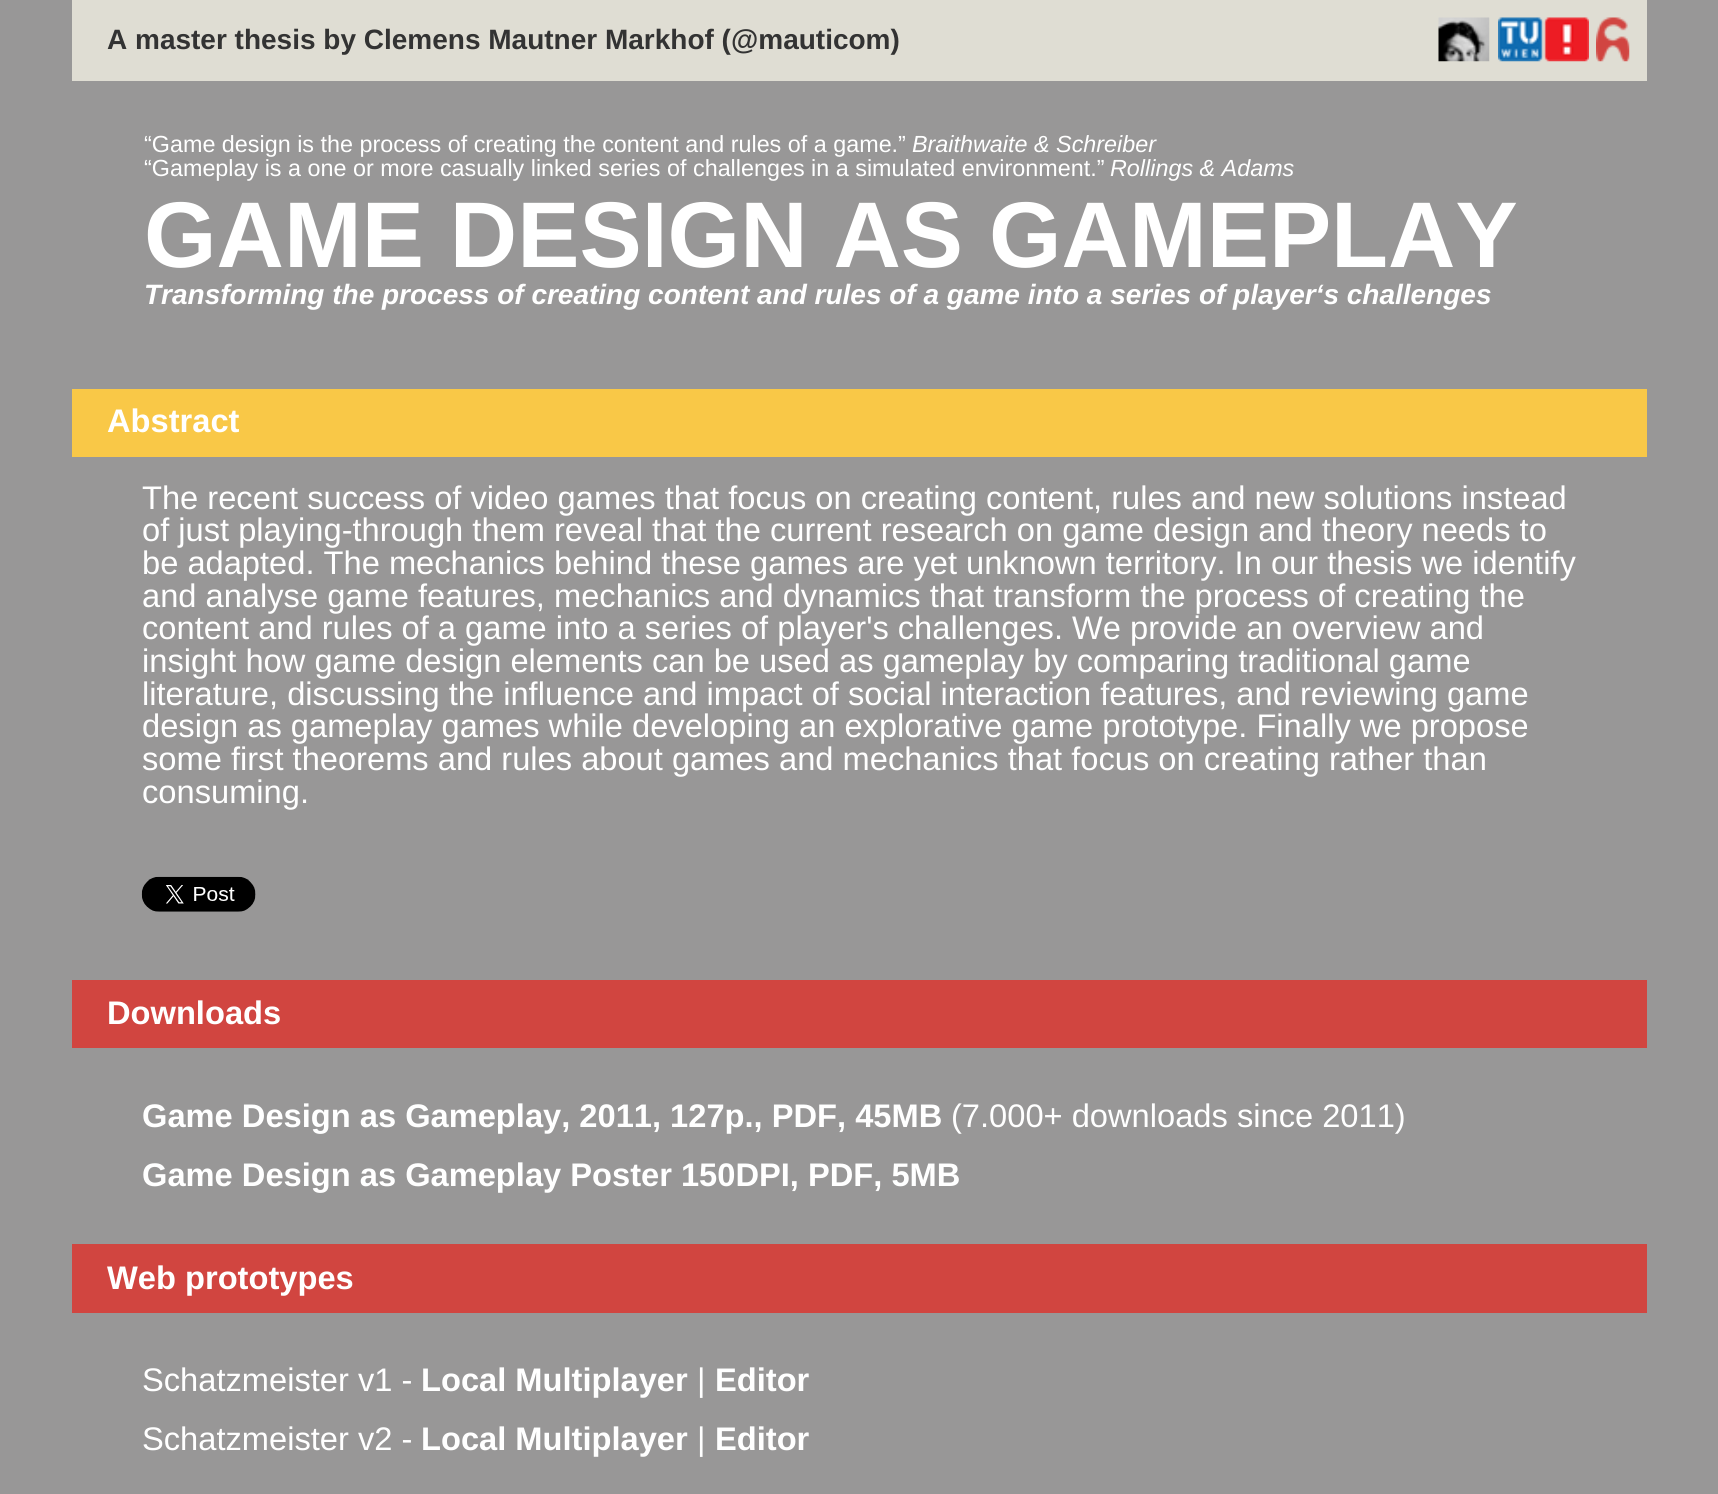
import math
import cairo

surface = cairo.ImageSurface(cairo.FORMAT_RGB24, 1718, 1494)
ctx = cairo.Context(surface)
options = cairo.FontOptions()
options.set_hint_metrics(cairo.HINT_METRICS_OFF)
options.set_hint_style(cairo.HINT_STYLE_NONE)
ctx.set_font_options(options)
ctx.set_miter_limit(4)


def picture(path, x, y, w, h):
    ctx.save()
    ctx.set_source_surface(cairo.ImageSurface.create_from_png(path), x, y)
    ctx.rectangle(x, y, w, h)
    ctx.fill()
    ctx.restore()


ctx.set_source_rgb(0.596, 0.592, 0.592)
ctx.paint()
ctx.set_source_rgb(0.875, 0.867, 0.827)
ctx.rectangle(72, 0, 1575, 81)
ctx.fill()
ctx.select_font_face("Liberation Sans", cairo.FONT_SLANT_NORMAL, cairo.FONT_WEIGHT_BOLD)
ctx.set_font_size(28)
ctx.set_source_rgb(0.2, 0.2, 0.2)
ctx.move_to(107, 49)
ctx.show_text("A master thesis by Clemens Mautner Markhof (@mauticom)")
picture("img1.png", 1438, 17, 52, 45)
picture("img2.png", 1498, 17, 91, 45)
picture("img3.png", 1596, 17, 34, 45)
ctx.select_font_face("Liberation Sans")
ctx.set_font_size(23.35)
ctx.set_source_rgb(1, 1, 1)
ctx.move_to(144, 152)
ctx.show_text("“Game design is the process of creating the content and rules of a game.”")
ctx.select_font_face("Liberation Sans", cairo.FONT_SLANT_ITALIC)
ctx.move_to(912, 152)
ctx.show_text("Braithwaite & Schreiber")
ctx.select_font_face("Liberation Sans")
ctx.move_to(144, 176)
ctx.show_text("“Gameplay is a one or more casually linked series of challenges in a simulated environment.”")
ctx.select_font_face("Liberation Sans", cairo.FONT_SLANT_ITALIC)
ctx.move_to(1110, 176)
ctx.show_text("Rollings & Adams")
ctx.select_font_face("Liberation Sans", cairo.FONT_SLANT_NORMAL, cairo.FONT_WEIGHT_BOLD)
ctx.set_font_size(93.3)
ctx.move_to(144, 267)
ctx.show_text("GAME DESIGN AS GAMEPLAY")
ctx.select_font_face("Liberation Sans", cairo.FONT_SLANT_ITALIC, cairo.FONT_WEIGHT_BOLD)
ctx.set_font_size(28)
ctx.move_to(144, 304)
ctx.show_text("Transforming the process of creating content and rules of a game into a series of player‘s challenges")
ctx.set_source_rgb(0.973, 0.784, 0.278)
ctx.rectangle(72, 389, 1575, 68)
ctx.fill()
ctx.select_font_face("Liberation Sans", cairo.FONT_SLANT_NORMAL, cairo.FONT_WEIGHT_BOLD)
ctx.set_font_size(32.65)
ctx.set_source_rgb(1, 1, 1)
ctx.move_to(107, 432)
ctx.show_text("Abstract")
ctx.select_font_face("Liberation Sans")
ctx.move_to(142, 509)
ctx.show_text("The recent success of video games that focus on creating content, rules and new solutions instead")
ctx.move_to(142, 541)
ctx.show_text("of just playing-through them reveal that the current research on game design and theory needs to")
ctx.move_to(142, 574)
ctx.show_text("be adapted. The mechanics behind these games are yet unknown territory. In our thesis we identify")
ctx.move_to(142, 607)
ctx.show_text("and analyse game features, mechanics and dynamics that transform the process of creating the")
ctx.move_to(142, 639)
ctx.show_text("content and rules of a game into a series of player's challenges. We provide an overview and")
ctx.move_to(142, 672)
ctx.show_text("insight how game design elements can be used as gameplay by comparing traditional game")
ctx.move_to(142, 705)
ctx.show_text("literature, discussing the influence and impact of social interaction features, and reviewing game")
ctx.move_to(142, 737)
ctx.show_text("design as gameplay games while developing an explorative game prototype. Finally we propose")
ctx.move_to(142, 770)
ctx.show_text("some first theorems and rules about games and mechanics that focus on creating rather than")
ctx.move_to(142, 803)
ctx.show_text("consuming.")
picture("img4.png", 141, 876, 115, 36)
ctx.set_source_rgb(0.82, 0.271, 0.251)
ctx.rectangle(72, 980, 1575, 68)
ctx.fill()
ctx.select_font_face("Liberation Sans", cairo.FONT_SLANT_NORMAL, cairo.FONT_WEIGHT_BOLD)
ctx.set_source_rgb(1, 1, 1)
ctx.move_to(107, 1024)
ctx.show_text("Downloads")
ctx.move_to(142, 1127)
ctx.show_text("Game Design as Gameplay, 2011, 127p., PDF, 45MB")
ctx.select_font_face("Liberation Sans")
ctx.move_to(951, 1127)
ctx.show_text("(7.000+ downloads since 2011)")
ctx.select_font_face("Liberation Sans", cairo.FONT_SLANT_NORMAL, cairo.FONT_WEIGHT_BOLD)
ctx.move_to(142, 1186)
ctx.show_text("Game Design as Gameplay Poster 150DPI, PDF, 5MB")
ctx.set_source_rgb(0.82, 0.271, 0.251)
ctx.rectangle(72, 1244, 1575, 69)
ctx.fill()
ctx.set_source_rgb(1, 1, 1)
ctx.move_to(107, 1289)
ctx.show_text("Web prototypes")
ctx.select_font_face("Liberation Sans")
ctx.move_to(142, 1391)
ctx.show_text("Schatzmeister v1 -")
ctx.select_font_face("Liberation Sans", cairo.FONT_SLANT_NORMAL, cairo.FONT_WEIGHT_BOLD)
ctx.move_to(421, 1391)
ctx.show_text("Local Multiplayer")
ctx.select_font_face("Liberation Sans")
ctx.move_to(697, 1391)
ctx.show_text("|")
ctx.select_font_face("Liberation Sans", cairo.FONT_SLANT_NORMAL, cairo.FONT_WEIGHT_BOLD)
ctx.move_to(715, 1391)
ctx.show_text("Editor")
ctx.select_font_face("Liberation Sans")
ctx.move_to(142, 1450)
ctx.show_text("Schatzmeister v2 -")
ctx.select_font_face("Liberation Sans", cairo.FONT_SLANT_NORMAL, cairo.FONT_WEIGHT_BOLD)
ctx.move_to(421, 1450)
ctx.show_text("Local Multiplayer")
ctx.select_font_face("Liberation Sans")
ctx.move_to(697, 1450)
ctx.show_text("|")
ctx.select_font_face("Liberation Sans", cairo.FONT_SLANT_NORMAL, cairo.FONT_WEIGHT_BOLD)
ctx.move_to(715, 1450)
ctx.show_text("Editor")
surface.write_to_png("page.png")
